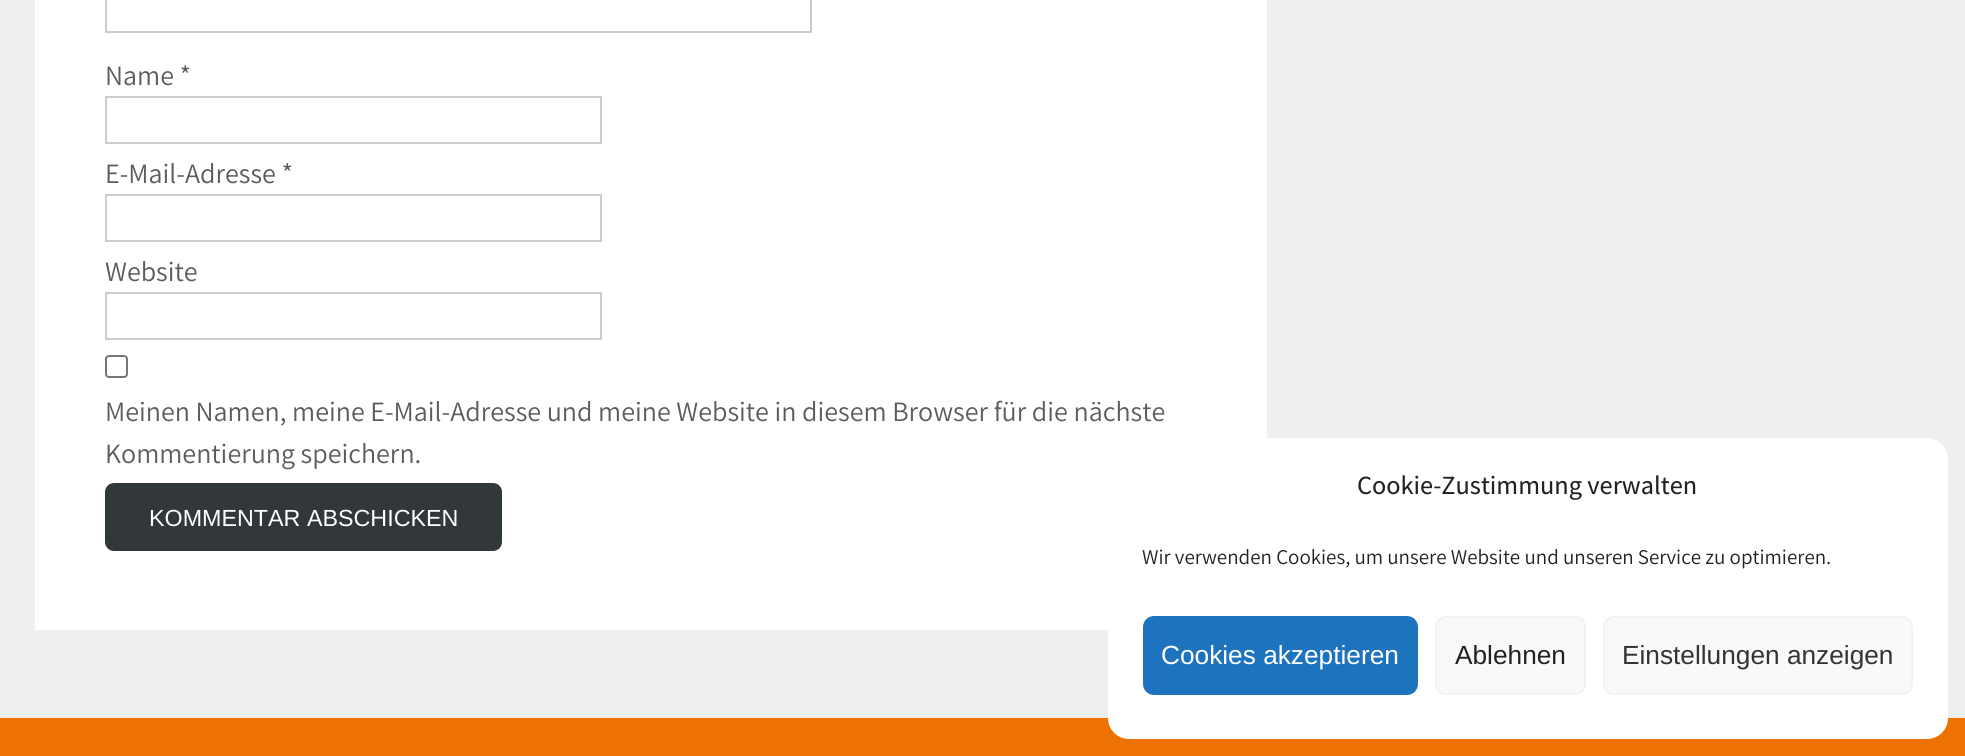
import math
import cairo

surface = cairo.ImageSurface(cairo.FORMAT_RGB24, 1965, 756)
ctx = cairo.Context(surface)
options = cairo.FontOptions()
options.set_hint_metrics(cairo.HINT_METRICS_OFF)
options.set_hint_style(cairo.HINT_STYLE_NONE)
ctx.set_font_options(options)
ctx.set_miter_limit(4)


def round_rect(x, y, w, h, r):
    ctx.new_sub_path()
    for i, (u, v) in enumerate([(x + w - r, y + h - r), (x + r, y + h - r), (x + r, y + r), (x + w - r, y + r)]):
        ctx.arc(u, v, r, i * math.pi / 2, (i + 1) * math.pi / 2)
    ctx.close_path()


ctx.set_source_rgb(0.937, 0.937, 0.937)
ctx.paint()
ctx.set_source_rgb(1, 1, 1)
ctx.rectangle(35, 0, 1232, 630)
ctx.fill()
ctx.rectangle(106, -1, 705, 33)
ctx.set_source_rgb(0.8, 0.8, 0.8)
ctx.stroke()
ctx.select_font_face("Assistant ExtraLight")
ctx.set_font_size(28)
ctx.set_source_rgb(0.361, 0.361, 0.361)
ctx.move_to(105, 85)
ctx.show_text("Name *")
ctx.rectangle(106, 97, 495, 46)
ctx.set_source_rgb(0.8, 0.8, 0.8)
ctx.stroke()
ctx.set_source_rgb(0.361, 0.361, 0.361)
ctx.move_to(105, 183)
ctx.show_text("E-Mail-Adresse *")
ctx.rectangle(106, 195, 495, 46)
ctx.set_source_rgb(0.8, 0.8, 0.8)
ctx.stroke()
ctx.set_source_rgb(0.361, 0.361, 0.361)
ctx.move_to(105, 281)
ctx.show_text("Website")
ctx.rectangle(106, 293, 495, 46)
ctx.set_source_rgb(0.8, 0.8, 0.8)
ctx.stroke()
round_rect(106, 356, 21, 21, 3)
ctx.set_source_rgb(0.463, 0.463, 0.463)
ctx.stroke()
ctx.set_source_rgb(0.361, 0.361, 0.361)
ctx.move_to(105, 421)
ctx.show_text("Meinen Namen, meine E-Mail-Adresse und meine Website in diesem Browser für die nächste")
ctx.move_to(105, 463)
ctx.show_text("Kommentierung speichern.")
ctx.set_source_rgb(0.196, 0.216, 0.227)
round_rect(105, 483, 397, 68, 9)
ctx.fill()
ctx.select_font_face("Liberation Sans")
ctx.set_font_size(23.3)
ctx.set_source_rgb(1, 1, 1)
ctx.move_to(149, 526)
ctx.show_text("KOMMENTAR ABSCHICKEN")
ctx.set_source_rgb(0.933, 0.447, 0.008)
ctx.rectangle(0, 718, 1965, 38)
ctx.fill()
ctx.set_source_rgb(1, 1, 1)
round_rect(1108, 438, 840, 301, 21)
ctx.fill()
ctx.select_font_face("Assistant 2 ExtraLight")
ctx.set_font_size(26.25)
ctx.set_source_rgb(0.133, 0.133, 0.133)
ctx.move_to(1357, 494)
ctx.show_text("Cookie-Zustimmung verwalten")
ctx.select_font_face("Assistant ExtraLight")
ctx.set_font_size(21)
ctx.move_to(1142, 564)
ctx.show_text("Wir verwenden Cookies, um unsere Website und unseren Service zu optimieren.")
ctx.set_source_rgb(0.118, 0.451, 0.745)
round_rect(1144, 617, 273, 77, 10)
ctx.fill_preserve()
ctx.stroke()
ctx.select_font_face("Liberation Sans")
ctx.set_font_size(26.25)
ctx.set_source_rgb(1, 1, 1)
ctx.move_to(1161, 664)
ctx.show_text("Cookies akzeptieren")
ctx.set_source_rgb(0.976, 0.976, 0.976)
round_rect(1436, 617, 149, 77, 10)
ctx.fill_preserve()
ctx.set_source_rgb(0.949, 0.949, 0.949)
ctx.stroke()
ctx.set_source_rgb(0.133, 0.133, 0.133)
ctx.move_to(1455, 664)
ctx.show_text("Ablehnen")
ctx.set_source_rgb(0.976, 0.976, 0.976)
round_rect(1604, 617, 308, 77, 10)
ctx.fill_preserve()
ctx.set_source_rgb(0.949, 0.949, 0.949)
ctx.stroke()
ctx.set_source_rgb(0.2, 0.2, 0.2)
ctx.move_to(1622, 664)
ctx.show_text("Einstellungen anzeigen")
surface.write_to_png("page.png")
